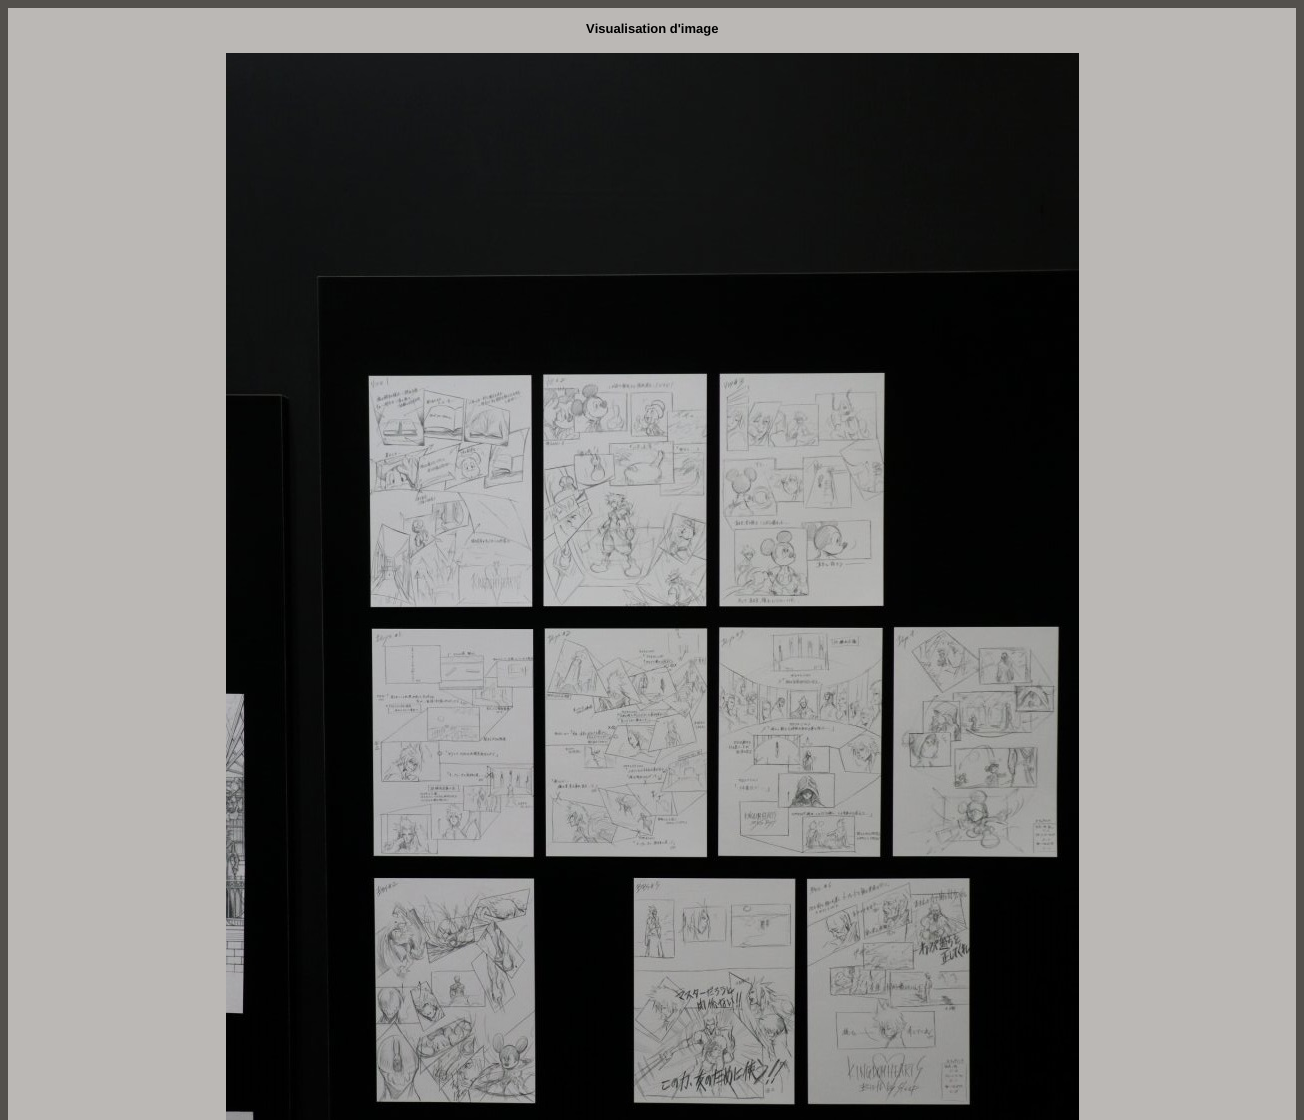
import math
import cairo

surface = cairo.ImageSurface(cairo.FORMAT_RGB24, 1304, 1120)
ctx = cairo.Context(surface)
options = cairo.FontOptions()
options.set_hint_metrics(cairo.HINT_METRICS_OFF)
options.set_hint_style(cairo.HINT_STYLE_NONE)
ctx.set_font_options(options)
ctx.set_miter_limit(4)


def picture(path, x, y, w, h):
    ctx.save()
    ctx.set_source_surface(cairo.ImageSurface.create_from_png(path), x, y)
    ctx.rectangle(x, y, w, h)
    ctx.fill()
    ctx.restore()


ctx.set_source_rgb(0.325, 0.314, 0.298)
ctx.paint()
ctx.set_source_rgb(0.733, 0.722, 0.71)
ctx.rectangle(8, 8, 1288, 1112)
ctx.fill()
ctx.select_font_face("Liberation Sans", cairo.FONT_SLANT_NORMAL, cairo.FONT_WEIGHT_BOLD)
ctx.set_font_size(13)
ctx.set_source_rgb(0, 0, 0)
ctx.move_to(586, 33)
ctx.show_text("Visualisation d'image")
picture("img1.png", 226, 53, 853, 1067)
surface.write_to_png("page.png")
